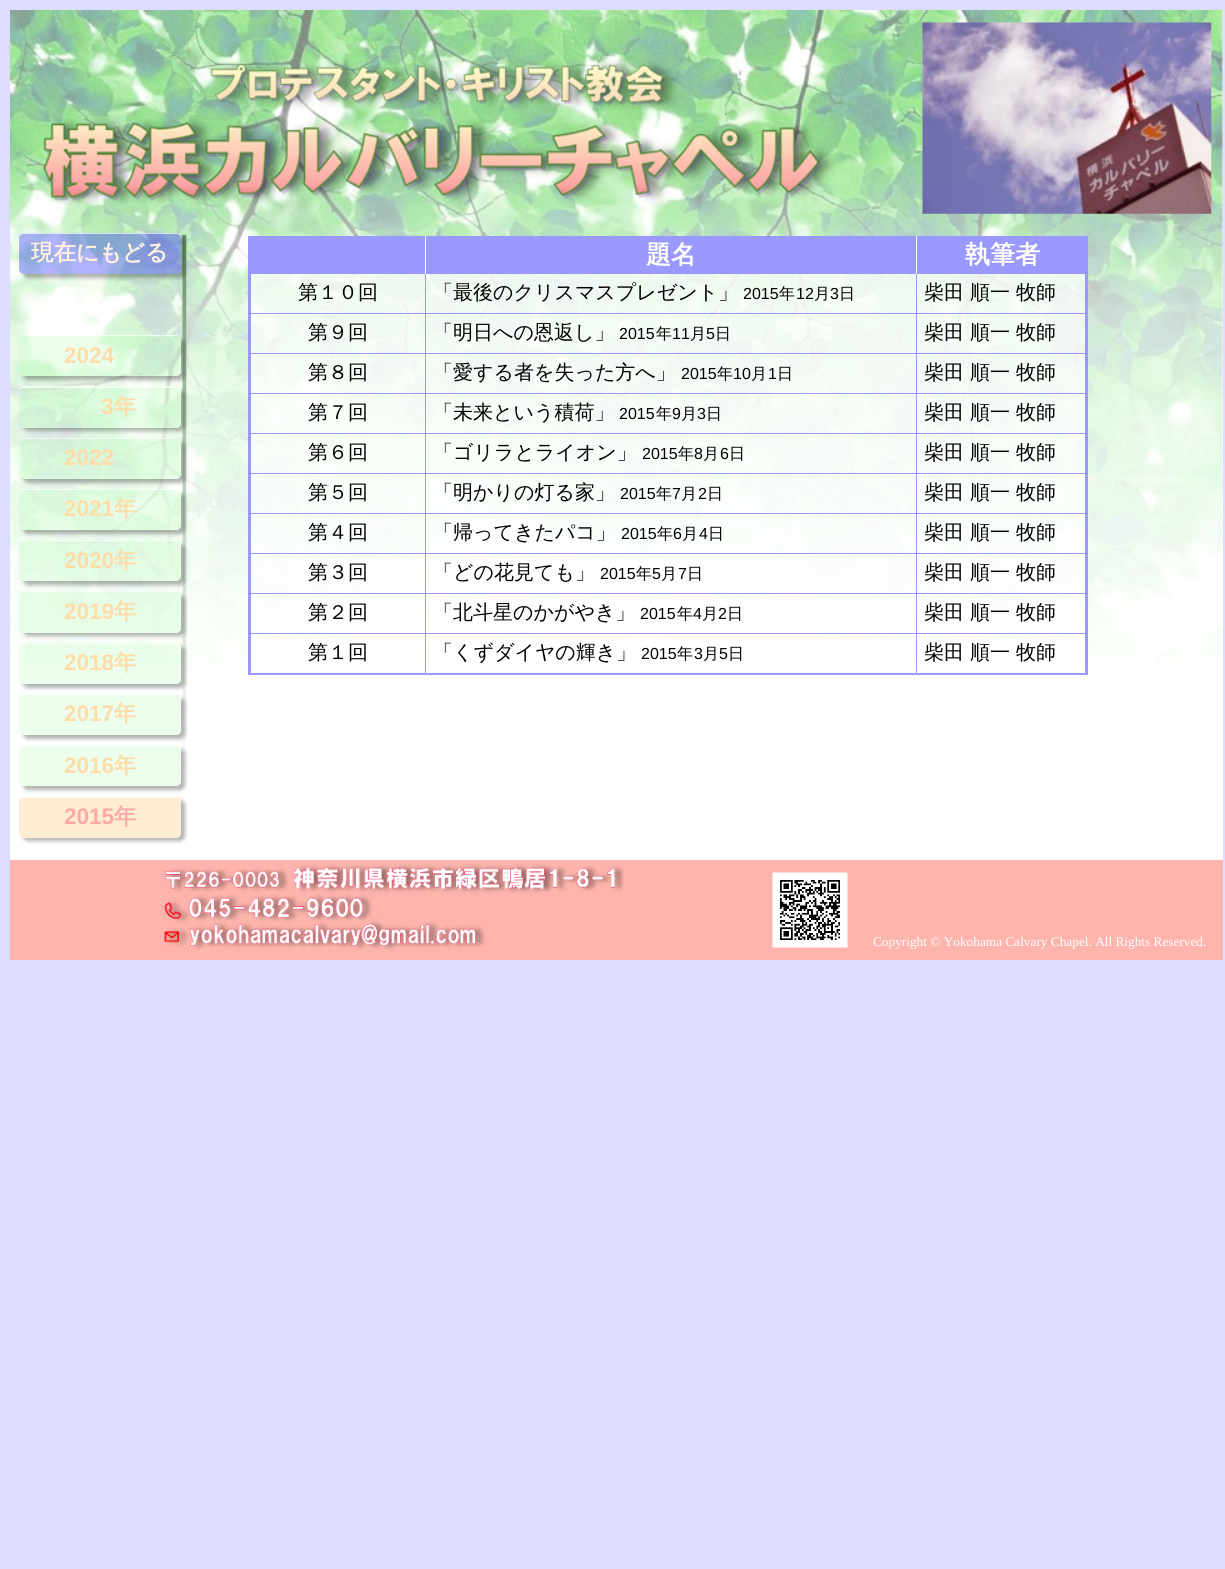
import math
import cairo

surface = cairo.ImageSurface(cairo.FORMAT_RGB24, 1225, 1569)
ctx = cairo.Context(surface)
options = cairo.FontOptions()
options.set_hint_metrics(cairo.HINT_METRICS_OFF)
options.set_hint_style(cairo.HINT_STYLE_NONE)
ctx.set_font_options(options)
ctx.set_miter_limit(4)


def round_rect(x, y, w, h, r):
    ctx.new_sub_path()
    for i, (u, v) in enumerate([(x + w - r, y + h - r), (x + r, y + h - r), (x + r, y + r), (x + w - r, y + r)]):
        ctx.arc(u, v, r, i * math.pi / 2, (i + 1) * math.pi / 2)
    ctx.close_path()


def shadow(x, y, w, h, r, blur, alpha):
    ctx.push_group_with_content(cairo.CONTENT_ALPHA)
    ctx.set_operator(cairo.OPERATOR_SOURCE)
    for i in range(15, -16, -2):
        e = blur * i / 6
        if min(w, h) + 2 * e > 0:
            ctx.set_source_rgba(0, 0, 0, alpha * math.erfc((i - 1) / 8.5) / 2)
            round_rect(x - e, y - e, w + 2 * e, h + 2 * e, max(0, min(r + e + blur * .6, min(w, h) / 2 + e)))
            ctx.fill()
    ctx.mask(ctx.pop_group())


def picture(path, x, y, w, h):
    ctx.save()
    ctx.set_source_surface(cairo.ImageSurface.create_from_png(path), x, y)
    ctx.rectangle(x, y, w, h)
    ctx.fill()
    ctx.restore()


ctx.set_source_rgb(0.867, 0.867, 1)
ctx.paint()
ctx.set_source_rgb(1, 1, 1)
ctx.rectangle(10, 10, 1213, 850)
ctx.fill()
picture("img1.png", 10, 10, 1213, 658)
picture("img2.png", 210, 59, 469, 52)
picture("img3.png", 922, 22, 290, 192)
picture("img4.png", 42, 118, 793, 88)
picture("img5.png", 182, 235, 5, 542)
ctx.save()
ctx.set_fill_rule(cairo.FILL_RULE_EVEN_ODD)
ctx.new_path()
ctx.move_to(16, 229)
ctx.line_to(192, 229)
ctx.line_to(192, 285)
ctx.line_to(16, 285)
ctx.close_path()
ctx.move_to(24, 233)
ctx.line_to(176, 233)
ctx.curve_to(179, 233, 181, 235, 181, 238)
ctx.line_to(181, 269)
ctx.curve_to(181, 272, 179, 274, 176, 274)
ctx.line_to(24, 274)
ctx.curve_to(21, 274, 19, 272, 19, 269)
ctx.line_to(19, 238)
ctx.curve_to(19, 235, 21, 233, 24, 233)
ctx.close_path()
ctx.clip()
ctx.set_source_rgb(0, 0, 0)
shadow(23, 236, 162, 42, 5, 2, 0.3)
ctx.restore()
ctx.set_source_rgba(0, 0, 1, 0.3)
round_rect(19, 233, 162, 41, 5)
ctx.fill()
ctx.set_source_rgba(1, 1, 1, 0.7)
ctx.new_path()
ctx.move_to(24, 234)
ctx.line_to(176, 234)
ctx.curve_to(179, 234, 181, 236, 181, 239)
ctx.line_to(181, 238)
ctx.curve_to(181, 235, 179, 233, 176, 233)
ctx.line_to(24, 233)
ctx.curve_to(21, 233, 19, 235, 19, 238)
ctx.line_to(19, 239)
ctx.curve_to(19, 236, 21, 234, 24, 234)
ctx.close_path()
ctx.fill()
ctx.select_font_face("WenQuanYi Zen Hei", cairo.FONT_SLANT_NORMAL, cairo.FONT_WEIGHT_BOLD)
ctx.set_font_size(22.5)
ctx.set_source_rgb(1, 0.941, 0.882)
ctx.move_to(31, 260)
ctx.show_text("現在にもどる")
ctx.set_source_rgb(0.6, 0.6, 1)
ctx.rectangle(248, 236, 177, 38)
ctx.fill()
ctx.rectangle(426, 236, 490, 38)
ctx.fill()
ctx.set_source_rgb(1, 1, 1)
ctx.rectangle(425, 236, 1, 38)
ctx.fill()
ctx.set_font_size(25)
ctx.move_to(646, 263)
ctx.show_text("題名")
ctx.set_source_rgb(0.6, 0.6, 1)
ctx.rectangle(917, 236, 171, 38)
ctx.fill()
ctx.set_source_rgb(1, 1, 1)
ctx.rectangle(916, 236, 1, 38)
ctx.fill()
ctx.move_to(965, 263)
ctx.show_text("執筆者")
ctx.set_source_rgba(1, 1, 1, 0.7)
ctx.rectangle(251, 274, 174, 39)
ctx.fill()
ctx.set_source_rgb(0.6, 0.6, 1)
ctx.rectangle(248, 313, 668, 1)
ctx.fill()
ctx.rectangle(248, 274, 3, 40)
ctx.fill()
ctx.select_font_face("WenQuanYi Zen Hei Medium")
ctx.set_font_size(20)
ctx.set_source_rgb(0, 0, 0)
ctx.move_to(298, 299)
ctx.show_text("第１０回")
ctx.set_source_rgba(1, 1, 1, 0.7)
ctx.rectangle(426, 274, 490, 39)
ctx.fill()
ctx.set_source_rgb(0.6, 0.6, 1)
ctx.rectangle(425, 274, 1, 40)
ctx.fill()
ctx.set_source_rgb(0, 0, 0)
ctx.move_to(433, 299)
ctx.show_text("「最後のクリスマスプレゼント」")
ctx.select_font_face("Liberation Sans")
ctx.set_font_size(16)
ctx.move_to(743, 299)
ctx.show_text("2015")
ctx.select_font_face("WenQuanYi Zen Hei Medium")
ctx.move_to(779, 299)
ctx.show_text("年")
ctx.select_font_face("Liberation Sans")
ctx.move_to(796, 299)
ctx.show_text("12")
ctx.select_font_face("WenQuanYi Zen Hei Medium")
ctx.move_to(814, 299)
ctx.show_text("月")
ctx.select_font_face("Liberation Sans")
ctx.move_to(830, 299)
ctx.show_text("3")
ctx.select_font_face("WenQuanYi Zen Hei Medium")
ctx.move_to(839, 299)
ctx.show_text("日")
ctx.set_source_rgba(1, 1, 1, 0.7)
ctx.rectangle(917, 274, 168, 39)
ctx.fill()
ctx.set_source_rgb(0.6, 0.6, 1)
ctx.rectangle(1085, 274, 3, 400)
ctx.fill()
ctx.rectangle(916, 313, 172, 1)
ctx.fill()
ctx.rectangle(916, 274, 1, 40)
ctx.fill()
ctx.set_font_size(20)
ctx.set_source_rgb(0, 0, 0)
ctx.move_to(924, 299)
ctx.show_text("柴田 順一 牧師")
ctx.set_source_rgba(1, 1, 1, 0.7)
ctx.rectangle(251, 314, 174, 39)
ctx.fill()
ctx.set_source_rgb(0.6, 0.6, 1)
ctx.rectangle(248, 353, 840, 1)
ctx.fill()
ctx.rectangle(248, 314, 3, 40)
ctx.fill()
ctx.set_source_rgb(0, 0, 0)
ctx.move_to(308, 339)
ctx.show_text("第９回")
ctx.set_source_rgba(1, 1, 1, 0.7)
ctx.rectangle(426, 314, 490, 39)
ctx.fill()
ctx.set_source_rgb(0.6, 0.6, 1)
ctx.rectangle(425, 314, 1, 40)
ctx.fill()
ctx.set_source_rgb(0, 0, 0)
ctx.move_to(433, 339)
ctx.show_text("「明日への恩返し」")
ctx.select_font_face("Liberation Sans")
ctx.set_font_size(16)
ctx.move_to(619, 339)
ctx.show_text("2015")
ctx.select_font_face("WenQuanYi Zen Hei Medium")
ctx.move_to(656, 339)
ctx.show_text("年")
ctx.select_font_face("Liberation Sans")
ctx.move_to(672, 339)
ctx.show_text("11")
ctx.select_font_face("WenQuanYi Zen Hei Medium")
ctx.move_to(690, 339)
ctx.show_text("月")
ctx.select_font_face("Liberation Sans")
ctx.move_to(706, 339)
ctx.show_text("5")
ctx.select_font_face("WenQuanYi Zen Hei Medium")
ctx.move_to(715, 339)
ctx.show_text("日")
ctx.set_source_rgba(1, 1, 1, 0.7)
ctx.rectangle(917, 314, 168, 39)
ctx.fill()
ctx.set_source_rgb(0.6, 0.6, 1)
ctx.rectangle(916, 314, 1, 40)
ctx.fill()
ctx.set_font_size(20)
ctx.set_source_rgb(0, 0, 0)
ctx.move_to(924, 339)
ctx.show_text("柴田 順一 牧師")
ctx.set_source_rgba(1, 1, 1, 0.7)
ctx.rectangle(251, 354, 174, 39)
ctx.fill()
ctx.set_source_rgb(0.6, 0.6, 1)
ctx.rectangle(248, 393, 840, 1)
ctx.fill()
ctx.rectangle(248, 354, 3, 40)
ctx.fill()
ctx.set_source_rgb(0, 0, 0)
ctx.move_to(308, 379)
ctx.show_text("第８回")
ctx.set_source_rgba(1, 1, 1, 0.7)
ctx.rectangle(426, 354, 490, 39)
ctx.fill()
ctx.set_source_rgb(0.6, 0.6, 1)
ctx.rectangle(425, 354, 1, 40)
ctx.fill()
ctx.set_source_rgb(0, 0, 0)
ctx.move_to(433, 379)
ctx.show_text("「愛する者を失った方へ」")
ctx.select_font_face("Liberation Sans")
ctx.set_font_size(16)
ctx.move_to(681, 379)
ctx.show_text("2015")
ctx.select_font_face("WenQuanYi Zen Hei Medium")
ctx.move_to(717, 379)
ctx.show_text("年")
ctx.select_font_face("Liberation Sans")
ctx.move_to(733, 379)
ctx.show_text("10")
ctx.select_font_face("WenQuanYi Zen Hei Medium")
ctx.move_to(751, 379)
ctx.show_text("月")
ctx.select_font_face("Liberation Sans")
ctx.move_to(768, 379)
ctx.show_text("1")
ctx.select_font_face("WenQuanYi Zen Hei Medium")
ctx.move_to(777, 379)
ctx.show_text("日")
ctx.set_source_rgba(1, 1, 1, 0.7)
ctx.rectangle(917, 354, 168, 39)
ctx.fill()
ctx.set_source_rgb(0.6, 0.6, 1)
ctx.rectangle(916, 354, 1, 40)
ctx.fill()
ctx.set_font_size(20)
ctx.set_source_rgb(0, 0, 0)
ctx.move_to(924, 379)
ctx.show_text("柴田 順一 牧師")
ctx.set_source_rgba(1, 1, 1, 0.7)
ctx.rectangle(251, 394, 174, 39)
ctx.fill()
ctx.set_source_rgb(0.6, 0.6, 1)
ctx.rectangle(248, 433, 840, 1)
ctx.fill()
ctx.rectangle(248, 394, 3, 40)
ctx.fill()
ctx.set_source_rgb(0, 0, 0)
ctx.move_to(308, 419)
ctx.show_text("第７回")
ctx.set_source_rgba(1, 1, 1, 0.7)
ctx.rectangle(426, 394, 490, 39)
ctx.fill()
ctx.set_source_rgb(0.6, 0.6, 1)
ctx.rectangle(425, 394, 1, 40)
ctx.fill()
ctx.set_source_rgb(0, 0, 0)
ctx.move_to(433, 419)
ctx.show_text("「未来という積荷」")
ctx.select_font_face("Liberation Sans")
ctx.set_font_size(16)
ctx.move_to(619, 419)
ctx.show_text("2015")
ctx.select_font_face("WenQuanYi Zen Hei Medium")
ctx.move_to(656, 419)
ctx.show_text("年")
ctx.select_font_face("Liberation Sans")
ctx.move_to(672, 419)
ctx.show_text("9")
ctx.select_font_face("WenQuanYi Zen Hei Medium")
ctx.move_to(681, 419)
ctx.show_text("月")
ctx.select_font_face("Liberation Sans")
ctx.move_to(697, 419)
ctx.show_text("3")
ctx.select_font_face("WenQuanYi Zen Hei Medium")
ctx.move_to(706, 419)
ctx.show_text("日")
ctx.set_source_rgba(1, 1, 1, 0.7)
ctx.rectangle(917, 394, 168, 39)
ctx.fill()
ctx.set_source_rgb(0.6, 0.6, 1)
ctx.rectangle(916, 394, 1, 40)
ctx.fill()
ctx.set_font_size(20)
ctx.set_source_rgb(0, 0, 0)
ctx.move_to(924, 419)
ctx.show_text("柴田 順一 牧師")
ctx.set_source_rgba(1, 1, 1, 0.7)
ctx.rectangle(251, 434, 174, 39)
ctx.fill()
ctx.set_source_rgb(0.6, 0.6, 1)
ctx.rectangle(248, 473, 840, 1)
ctx.fill()
ctx.rectangle(248, 434, 3, 40)
ctx.fill()
ctx.set_source_rgb(0, 0, 0)
ctx.move_to(308, 459)
ctx.show_text("第６回")
ctx.set_source_rgba(1, 1, 1, 0.7)
ctx.rectangle(426, 434, 490, 39)
ctx.fill()
ctx.set_source_rgb(0.6, 0.6, 1)
ctx.rectangle(425, 434, 1, 40)
ctx.fill()
ctx.set_source_rgb(0, 0, 0)
ctx.move_to(433, 459)
ctx.show_text("「ゴリラとライオン」")
ctx.select_font_face("Liberation Sans")
ctx.set_font_size(16)
ctx.move_to(642, 459)
ctx.show_text("2015")
ctx.select_font_face("WenQuanYi Zen Hei Medium")
ctx.move_to(678, 459)
ctx.show_text("年")
ctx.select_font_face("Liberation Sans")
ctx.move_to(694, 459)
ctx.show_text("8")
ctx.select_font_face("WenQuanYi Zen Hei Medium")
ctx.move_to(703, 459)
ctx.show_text("月")
ctx.select_font_face("Liberation Sans")
ctx.move_to(720, 459)
ctx.show_text("6")
ctx.select_font_face("WenQuanYi Zen Hei Medium")
ctx.move_to(729, 459)
ctx.show_text("日")
ctx.set_source_rgba(1, 1, 1, 0.7)
ctx.rectangle(917, 434, 168, 39)
ctx.fill()
ctx.set_source_rgb(0.6, 0.6, 1)
ctx.rectangle(916, 434, 1, 40)
ctx.fill()
ctx.set_font_size(20)
ctx.set_source_rgb(0, 0, 0)
ctx.move_to(924, 459)
ctx.show_text("柴田 順一 牧師")
ctx.set_source_rgba(1, 1, 1, 0.7)
ctx.rectangle(251, 474, 174, 39)
ctx.fill()
ctx.set_source_rgb(0.6, 0.6, 1)
ctx.rectangle(248, 513, 840, 1)
ctx.fill()
ctx.rectangle(248, 474, 3, 40)
ctx.fill()
ctx.set_source_rgb(0, 0, 0)
ctx.move_to(308, 499)
ctx.show_text("第５回")
ctx.set_source_rgba(1, 1, 1, 0.7)
ctx.rectangle(426, 474, 490, 39)
ctx.fill()
ctx.set_source_rgb(0.6, 0.6, 1)
ctx.rectangle(425, 474, 1, 40)
ctx.fill()
ctx.set_source_rgb(0, 0, 0)
ctx.move_to(433, 499)
ctx.show_text("「明かりの灯る家」")
ctx.select_font_face("Liberation Sans")
ctx.set_font_size(16)
ctx.move_to(620, 499)
ctx.show_text("2015")
ctx.select_font_face("WenQuanYi Zen Hei Medium")
ctx.move_to(656, 499)
ctx.show_text("年")
ctx.select_font_face("Liberation Sans")
ctx.move_to(672, 499)
ctx.show_text("7")
ctx.select_font_face("WenQuanYi Zen Hei Medium")
ctx.move_to(681, 499)
ctx.show_text("月")
ctx.select_font_face("Liberation Sans")
ctx.move_to(698, 499)
ctx.show_text("2")
ctx.select_font_face("WenQuanYi Zen Hei Medium")
ctx.move_to(707, 499)
ctx.show_text("日")
ctx.set_source_rgba(1, 1, 1, 0.7)
ctx.rectangle(917, 474, 168, 39)
ctx.fill()
ctx.set_source_rgb(0.6, 0.6, 1)
ctx.rectangle(916, 474, 1, 40)
ctx.fill()
ctx.set_font_size(20)
ctx.set_source_rgb(0, 0, 0)
ctx.move_to(924, 499)
ctx.show_text("柴田 順一 牧師")
ctx.set_source_rgba(1, 1, 1, 0.7)
ctx.rectangle(251, 514, 174, 39)
ctx.fill()
ctx.set_source_rgb(0.6, 0.6, 1)
ctx.rectangle(248, 553, 840, 1)
ctx.fill()
ctx.rectangle(248, 514, 3, 40)
ctx.fill()
ctx.set_source_rgb(0, 0, 0)
ctx.move_to(308, 539)
ctx.show_text("第４回")
ctx.set_source_rgba(1, 1, 1, 0.7)
ctx.rectangle(426, 514, 490, 39)
ctx.fill()
ctx.set_source_rgb(0.6, 0.6, 1)
ctx.rectangle(425, 514, 1, 40)
ctx.fill()
ctx.set_source_rgb(0, 0, 0)
ctx.move_to(433, 539)
ctx.show_text("「帰ってきたパコ」")
ctx.select_font_face("Liberation Sans")
ctx.set_font_size(16)
ctx.move_to(621, 539)
ctx.show_text("2015")
ctx.select_font_face("WenQuanYi Zen Hei Medium")
ctx.move_to(657, 539)
ctx.show_text("年")
ctx.select_font_face("Liberation Sans")
ctx.move_to(673, 539)
ctx.show_text("6")
ctx.select_font_face("WenQuanYi Zen Hei Medium")
ctx.move_to(682, 539)
ctx.show_text("月")
ctx.select_font_face("Liberation Sans")
ctx.move_to(699, 539)
ctx.show_text("4")
ctx.select_font_face("WenQuanYi Zen Hei Medium")
ctx.move_to(708, 539)
ctx.show_text("日")
ctx.set_source_rgba(1, 1, 1, 0.7)
ctx.rectangle(917, 514, 168, 39)
ctx.fill()
ctx.set_source_rgb(0.6, 0.6, 1)
ctx.rectangle(916, 514, 1, 40)
ctx.fill()
ctx.set_font_size(20)
ctx.set_source_rgb(0, 0, 0)
ctx.move_to(924, 539)
ctx.show_text("柴田 順一 牧師")
ctx.set_source_rgba(1, 1, 1, 0.7)
ctx.rectangle(251, 554, 174, 39)
ctx.fill()
ctx.set_source_rgb(0.6, 0.6, 1)
ctx.rectangle(248, 593, 840, 1)
ctx.fill()
ctx.rectangle(248, 554, 3, 40)
ctx.fill()
ctx.set_source_rgb(0, 0, 0)
ctx.move_to(308, 579)
ctx.show_text("第３回")
ctx.set_source_rgba(1, 1, 1, 0.7)
ctx.rectangle(426, 554, 490, 39)
ctx.fill()
ctx.set_source_rgb(0.6, 0.6, 1)
ctx.rectangle(425, 554, 1, 40)
ctx.fill()
ctx.set_source_rgb(0, 0, 0)
ctx.move_to(433, 579)
ctx.show_text("「どの花見ても」")
ctx.select_font_face("Liberation Sans")
ctx.set_font_size(16)
ctx.move_to(600, 579)
ctx.show_text("2015")
ctx.select_font_face("WenQuanYi Zen Hei Medium")
ctx.move_to(636, 579)
ctx.show_text("年")
ctx.select_font_face("Liberation Sans")
ctx.move_to(652, 579)
ctx.show_text("5")
ctx.select_font_face("WenQuanYi Zen Hei Medium")
ctx.move_to(661, 579)
ctx.show_text("月")
ctx.select_font_face("Liberation Sans")
ctx.move_to(678, 579)
ctx.show_text("7")
ctx.select_font_face("WenQuanYi Zen Hei Medium")
ctx.move_to(687, 579)
ctx.show_text("日")
ctx.set_source_rgba(1, 1, 1, 0.7)
ctx.rectangle(917, 554, 168, 39)
ctx.fill()
ctx.set_source_rgb(0.6, 0.6, 1)
ctx.rectangle(916, 554, 1, 40)
ctx.fill()
ctx.set_font_size(20)
ctx.set_source_rgb(0, 0, 0)
ctx.move_to(924, 579)
ctx.show_text("柴田 順一 牧師")
ctx.set_source_rgba(1, 1, 1, 0.7)
ctx.rectangle(251, 594, 174, 39)
ctx.fill()
ctx.set_source_rgb(0.6, 0.6, 1)
ctx.rectangle(248, 633, 840, 1)
ctx.fill()
ctx.rectangle(248, 594, 3, 40)
ctx.fill()
ctx.set_source_rgb(0, 0, 0)
ctx.move_to(308, 619)
ctx.show_text("第２回")
ctx.set_source_rgba(1, 1, 1, 0.7)
ctx.rectangle(426, 594, 490, 39)
ctx.fill()
ctx.set_source_rgb(0.6, 0.6, 1)
ctx.rectangle(425, 594, 1, 40)
ctx.fill()
ctx.set_source_rgb(0, 0, 0)
ctx.move_to(433, 619)
ctx.show_text("「北斗星のかがやき」")
ctx.select_font_face("Liberation Sans")
ctx.set_font_size(16)
ctx.move_to(640, 619)
ctx.show_text("2015")
ctx.select_font_face("WenQuanYi Zen Hei Medium")
ctx.move_to(677, 619)
ctx.show_text("年")
ctx.select_font_face("Liberation Sans")
ctx.move_to(693, 619)
ctx.show_text("4")
ctx.select_font_face("WenQuanYi Zen Hei Medium")
ctx.move_to(702, 619)
ctx.show_text("月")
ctx.select_font_face("Liberation Sans")
ctx.move_to(718, 619)
ctx.show_text("2")
ctx.select_font_face("WenQuanYi Zen Hei Medium")
ctx.move_to(727, 619)
ctx.show_text("日")
ctx.set_source_rgba(1, 1, 1, 0.7)
ctx.rectangle(917, 594, 168, 39)
ctx.fill()
ctx.set_source_rgb(0.6, 0.6, 1)
ctx.rectangle(916, 594, 1, 40)
ctx.fill()
ctx.set_font_size(20)
ctx.set_source_rgb(0, 0, 0)
ctx.move_to(924, 619)
ctx.show_text("柴田 順一 牧師")
ctx.set_source_rgba(1, 1, 1, 0.7)
ctx.rectangle(251, 634, 174, 32)
ctx.fill()
ctx.set_source_rgb(0.6, 0.6, 1)
ctx.rectangle(248, 673, 840, 1)
ctx.fill()
ctx.rectangle(248, 634, 3, 40)
ctx.fill()
ctx.set_source_rgb(0, 0, 0)
ctx.move_to(308, 659)
ctx.show_text("第１回")
ctx.set_source_rgba(1, 1, 1, 0.7)
ctx.rectangle(426, 634, 490, 32)
ctx.fill()
ctx.set_source_rgb(0.6, 0.6, 1)
ctx.rectangle(425, 634, 1, 40)
ctx.fill()
ctx.set_source_rgb(0, 0, 0)
ctx.move_to(433, 659)
ctx.show_text("「くずダイヤの輝き」")
ctx.select_font_face("Liberation Sans")
ctx.set_font_size(16)
ctx.move_to(641, 659)
ctx.show_text("2015")
ctx.select_font_face("WenQuanYi Zen Hei Medium")
ctx.move_to(677, 659)
ctx.show_text("年")
ctx.select_font_face("Liberation Sans")
ctx.move_to(694, 659)
ctx.show_text("3")
ctx.select_font_face("WenQuanYi Zen Hei Medium")
ctx.move_to(703, 659)
ctx.show_text("月")
ctx.select_font_face("Liberation Sans")
ctx.move_to(719, 659)
ctx.show_text("5")
ctx.select_font_face("WenQuanYi Zen Hei Medium")
ctx.move_to(728, 659)
ctx.show_text("日")
ctx.set_source_rgba(1, 1, 1, 0.7)
ctx.rectangle(917, 634, 168, 34)
ctx.fill()
ctx.set_source_rgb(0.6, 0.6, 1)
ctx.rectangle(916, 634, 1, 40)
ctx.fill()
ctx.set_font_size(20)
ctx.set_source_rgb(0, 0, 0)
ctx.move_to(924, 659)
ctx.show_text("柴田 順一 牧師")
ctx.set_source_rgb(0.6, 0.6, 1)
ctx.rectangle(248, 674, 840, 1)
ctx.fill()
ctx.save()
ctx.set_fill_rule(cairo.FILL_RULE_EVEN_ODD)
ctx.new_path()
ctx.move_to(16, 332)
ctx.line_to(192, 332)
ctx.line_to(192, 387)
ctx.line_to(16, 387)
ctx.close_path()
ctx.move_to(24, 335)
ctx.line_to(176, 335)
ctx.curve_to(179, 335, 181, 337, 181, 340)
ctx.line_to(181, 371)
ctx.curve_to(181, 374, 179, 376, 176, 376)
ctx.line_to(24, 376)
ctx.curve_to(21, 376, 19, 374, 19, 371)
ctx.line_to(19, 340)
ctx.curve_to(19, 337, 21, 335, 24, 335)
ctx.close_path()
ctx.clip()
ctx.set_source_rgb(0, 0, 0)
shadow(23, 339, 162, 41, 5, 2, 0.3)
ctx.restore()
ctx.set_source_rgba(0.627, 1, 0.627, 0.2)
round_rect(19, 335, 162, 41, 5)
ctx.fill()
ctx.set_source_rgba(1, 1, 1, 0.7)
ctx.new_path()
ctx.move_to(24, 336)
ctx.line_to(176, 336)
ctx.curve_to(179, 336, 181, 338, 181, 341)
ctx.line_to(181, 340)
ctx.curve_to(181, 337, 179, 335, 176, 335)
ctx.line_to(24, 335)
ctx.curve_to(21, 335, 19, 337, 19, 340)
ctx.line_to(19, 341)
ctx.curve_to(19, 338, 21, 336, 24, 336)
ctx.close_path()
ctx.fill()
ctx.select_font_face("Liberation Sans", cairo.FONT_SLANT_NORMAL, cairo.FONT_WEIGHT_BOLD)
ctx.set_font_size(22.5)
ctx.set_source_rgb(1, 0.863, 0.659)
ctx.move_to(64, 363)
ctx.show_text("2024")
ctx.save()
ctx.set_fill_rule(cairo.FILL_RULE_EVEN_ODD)
ctx.new_path()
ctx.move_to(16, 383)
ctx.line_to(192, 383)
ctx.line_to(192, 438)
ctx.line_to(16, 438)
ctx.close_path()
ctx.move_to(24, 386)
ctx.line_to(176, 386)
ctx.curve_to(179, 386, 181, 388, 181, 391)
ctx.line_to(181, 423)
ctx.curve_to(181, 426, 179, 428, 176, 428)
ctx.line_to(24, 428)
ctx.curve_to(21, 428, 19, 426, 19, 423)
ctx.line_to(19, 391)
ctx.curve_to(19, 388, 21, 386, 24, 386)
ctx.close_path()
ctx.clip()
ctx.set_source_rgb(0, 0, 0)
shadow(23, 390, 162, 41, 5, 2, 0.3)
ctx.restore()
ctx.set_source_rgba(0.627, 1, 0.627, 0.2)
round_rect(19, 386, 162, 42, 5)
ctx.fill()
ctx.set_source_rgba(1, 1, 1, 0.7)
ctx.new_path()
ctx.move_to(24, 388)
ctx.line_to(176, 388)
ctx.curve_to(179, 388, 181, 390, 181, 392)
ctx.line_to(181, 391)
ctx.curve_to(181, 388, 179, 386, 176, 386)
ctx.line_to(24, 386)
ctx.curve_to(21, 386, 19, 388, 19, 391)
ctx.line_to(19, 392)
ctx.curve_to(19, 390, 21, 388, 24, 388)
ctx.close_path()
ctx.fill()
ctx.set_source_rgb(1, 0.863, 0.659)
ctx.move_to(101, 414)
ctx.show_text("3")
ctx.select_font_face("WenQuanYi Zen Hei", cairo.FONT_SLANT_NORMAL, cairo.FONT_WEIGHT_BOLD)
ctx.move_to(114, 414)
ctx.show_text("年")
ctx.save()
ctx.set_fill_rule(cairo.FILL_RULE_EVEN_ODD)
ctx.new_path()
ctx.move_to(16, 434)
ctx.line_to(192, 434)
ctx.line_to(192, 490)
ctx.line_to(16, 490)
ctx.close_path()
ctx.move_to(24, 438)
ctx.line_to(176, 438)
ctx.curve_to(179, 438, 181, 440, 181, 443)
ctx.line_to(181, 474)
ctx.curve_to(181, 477, 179, 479, 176, 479)
ctx.line_to(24, 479)
ctx.curve_to(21, 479, 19, 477, 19, 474)
ctx.line_to(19, 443)
ctx.curve_to(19, 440, 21, 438, 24, 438)
ctx.close_path()
ctx.clip()
ctx.set_source_rgb(0, 0, 0)
shadow(23, 441, 162, 42, 5, 2, 0.3)
ctx.restore()
ctx.set_source_rgba(0.627, 1, 0.627, 0.2)
round_rect(19, 438, 162, 41, 5)
ctx.fill()
ctx.set_source_rgba(1, 1, 1, 0.7)
ctx.new_path()
ctx.move_to(24, 439)
ctx.line_to(176, 439)
ctx.curve_to(179, 439, 181, 441, 181, 444)
ctx.line_to(181, 443)
ctx.curve_to(181, 440, 179, 438, 176, 438)
ctx.line_to(24, 438)
ctx.curve_to(21, 438, 19, 440, 19, 443)
ctx.line_to(19, 444)
ctx.curve_to(19, 441, 21, 439, 24, 439)
ctx.close_path()
ctx.fill()
ctx.select_font_face("Liberation Sans", cairo.FONT_SLANT_NORMAL, cairo.FONT_WEIGHT_BOLD)
ctx.set_source_rgb(1, 0.863, 0.659)
ctx.move_to(64, 465)
ctx.show_text("2022")
ctx.save()
ctx.set_fill_rule(cairo.FILL_RULE_EVEN_ODD)
ctx.new_path()
ctx.move_to(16, 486)
ctx.line_to(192, 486)
ctx.line_to(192, 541)
ctx.line_to(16, 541)
ctx.close_path()
ctx.move_to(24, 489)
ctx.line_to(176, 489)
ctx.curve_to(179, 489, 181, 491, 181, 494)
ctx.line_to(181, 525)
ctx.curve_to(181, 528, 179, 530, 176, 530)
ctx.line_to(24, 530)
ctx.curve_to(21, 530, 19, 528, 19, 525)
ctx.line_to(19, 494)
ctx.curve_to(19, 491, 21, 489, 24, 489)
ctx.close_path()
ctx.clip()
ctx.set_source_rgb(0, 0, 0)
shadow(23, 493, 162, 41, 5, 2, 0.3)
ctx.restore()
ctx.set_source_rgba(0.627, 1, 0.627, 0.2)
round_rect(19, 489, 162, 41, 5)
ctx.fill()
ctx.set_source_rgba(1, 1, 1, 0.7)
ctx.new_path()
ctx.move_to(24, 490)
ctx.line_to(176, 490)
ctx.curve_to(179, 490, 181, 492, 181, 495)
ctx.line_to(181, 494)
ctx.curve_to(181, 491, 179, 489, 176, 489)
ctx.line_to(24, 489)
ctx.curve_to(21, 489, 19, 491, 19, 494)
ctx.line_to(19, 495)
ctx.curve_to(19, 492, 21, 490, 24, 490)
ctx.close_path()
ctx.fill()
ctx.set_source_rgb(1, 0.863, 0.659)
ctx.move_to(64, 516)
ctx.show_text("2021")
ctx.select_font_face("WenQuanYi Zen Hei", cairo.FONT_SLANT_NORMAL, cairo.FONT_WEIGHT_BOLD)
ctx.move_to(114, 516)
ctx.show_text("年")
ctx.save()
ctx.set_fill_rule(cairo.FILL_RULE_EVEN_ODD)
ctx.new_path()
ctx.move_to(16, 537)
ctx.line_to(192, 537)
ctx.line_to(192, 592)
ctx.line_to(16, 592)
ctx.close_path()
ctx.move_to(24, 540)
ctx.line_to(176, 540)
ctx.curve_to(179, 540, 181, 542, 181, 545)
ctx.line_to(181, 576)
ctx.curve_to(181, 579, 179, 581, 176, 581)
ctx.line_to(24, 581)
ctx.curve_to(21, 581, 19, 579, 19, 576)
ctx.line_to(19, 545)
ctx.curve_to(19, 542, 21, 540, 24, 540)
ctx.close_path()
ctx.clip()
ctx.set_source_rgb(0, 0, 0)
shadow(23, 544, 162, 41, 5, 2, 0.3)
ctx.restore()
ctx.set_source_rgba(0.627, 1, 0.627, 0.2)
round_rect(19, 540, 162, 41, 5)
ctx.fill()
ctx.set_source_rgba(1, 1, 1, 0.7)
ctx.new_path()
ctx.move_to(24, 541)
ctx.line_to(176, 541)
ctx.curve_to(179, 541, 181, 543, 181, 546)
ctx.line_to(181, 545)
ctx.curve_to(181, 542, 179, 540, 176, 540)
ctx.line_to(24, 540)
ctx.curve_to(21, 540, 19, 542, 19, 545)
ctx.line_to(19, 546)
ctx.curve_to(19, 543, 21, 541, 24, 541)
ctx.close_path()
ctx.fill()
ctx.select_font_face("Liberation Sans", cairo.FONT_SLANT_NORMAL, cairo.FONT_WEIGHT_BOLD)
ctx.set_source_rgb(1, 0.863, 0.659)
ctx.move_to(64, 568)
ctx.show_text("2020")
ctx.select_font_face("WenQuanYi Zen Hei", cairo.FONT_SLANT_NORMAL, cairo.FONT_WEIGHT_BOLD)
ctx.move_to(114, 568)
ctx.show_text("年")
ctx.save()
ctx.set_fill_rule(cairo.FILL_RULE_EVEN_ODD)
ctx.new_path()
ctx.move_to(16, 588)
ctx.line_to(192, 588)
ctx.line_to(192, 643)
ctx.line_to(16, 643)
ctx.close_path()
ctx.move_to(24, 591)
ctx.line_to(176, 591)
ctx.curve_to(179, 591, 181, 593, 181, 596)
ctx.line_to(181, 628)
ctx.curve_to(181, 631, 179, 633, 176, 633)
ctx.line_to(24, 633)
ctx.curve_to(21, 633, 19, 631, 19, 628)
ctx.line_to(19, 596)
ctx.curve_to(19, 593, 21, 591, 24, 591)
ctx.close_path()
ctx.clip()
ctx.set_source_rgb(0, 0, 0)
shadow(23, 595, 162, 41, 5, 2, 0.3)
ctx.restore()
ctx.set_source_rgba(0.627, 1, 0.627, 0.2)
round_rect(19, 591, 162, 42, 5)
ctx.fill()
ctx.set_source_rgba(1, 1, 1, 0.7)
ctx.new_path()
ctx.move_to(24, 592)
ctx.line_to(176, 592)
ctx.curve_to(179, 592, 181, 595, 181, 598)
ctx.line_to(181, 596)
ctx.curve_to(181, 593, 179, 591, 176, 591)
ctx.line_to(24, 591)
ctx.curve_to(21, 591, 19, 593, 19, 596)
ctx.line_to(19, 598)
ctx.curve_to(19, 595, 21, 592, 24, 592)
ctx.close_path()
ctx.fill()
ctx.select_font_face("Liberation Sans", cairo.FONT_SLANT_NORMAL, cairo.FONT_WEIGHT_BOLD)
ctx.set_source_rgb(1, 0.863, 0.659)
ctx.move_to(64, 619)
ctx.show_text("2019")
ctx.select_font_face("WenQuanYi Zen Hei", cairo.FONT_SLANT_NORMAL, cairo.FONT_WEIGHT_BOLD)
ctx.move_to(114, 619)
ctx.show_text("年")
ctx.save()
ctx.set_fill_rule(cairo.FILL_RULE_EVEN_ODD)
ctx.new_path()
ctx.move_to(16, 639)
ctx.line_to(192, 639)
ctx.line_to(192, 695)
ctx.line_to(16, 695)
ctx.close_path()
ctx.move_to(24, 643)
ctx.line_to(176, 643)
ctx.curve_to(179, 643, 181, 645, 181, 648)
ctx.line_to(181, 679)
ctx.curve_to(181, 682, 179, 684, 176, 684)
ctx.line_to(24, 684)
ctx.curve_to(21, 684, 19, 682, 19, 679)
ctx.line_to(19, 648)
ctx.curve_to(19, 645, 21, 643, 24, 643)
ctx.close_path()
ctx.clip()
ctx.set_source_rgb(0, 0, 0)
shadow(23, 646, 162, 42, 5, 2, 0.3)
ctx.restore()
ctx.set_source_rgba(0.627, 1, 0.627, 0.2)
round_rect(19, 643, 162, 41, 5)
ctx.fill()
ctx.set_source_rgba(1, 1, 1, 0.7)
ctx.new_path()
ctx.move_to(24, 644)
ctx.line_to(176, 644)
ctx.curve_to(179, 644, 181, 646, 181, 649)
ctx.line_to(181, 648)
ctx.curve_to(181, 645, 179, 643, 176, 643)
ctx.line_to(24, 643)
ctx.curve_to(21, 643, 19, 645, 19, 648)
ctx.line_to(19, 649)
ctx.curve_to(19, 646, 21, 644, 24, 644)
ctx.close_path()
ctx.fill()
ctx.select_font_face("Liberation Sans", cairo.FONT_SLANT_NORMAL, cairo.FONT_WEIGHT_BOLD)
ctx.set_source_rgb(1, 0.863, 0.659)
ctx.move_to(64, 670)
ctx.show_text("2018")
ctx.select_font_face("WenQuanYi Zen Hei", cairo.FONT_SLANT_NORMAL, cairo.FONT_WEIGHT_BOLD)
ctx.move_to(114, 670)
ctx.show_text("年")
ctx.save()
ctx.set_fill_rule(cairo.FILL_RULE_EVEN_ODD)
ctx.new_path()
ctx.move_to(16, 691)
ctx.line_to(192, 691)
ctx.line_to(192, 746)
ctx.line_to(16, 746)
ctx.close_path()
ctx.move_to(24, 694)
ctx.line_to(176, 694)
ctx.curve_to(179, 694, 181, 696, 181, 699)
ctx.line_to(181, 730)
ctx.curve_to(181, 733, 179, 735, 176, 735)
ctx.line_to(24, 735)
ctx.curve_to(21, 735, 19, 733, 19, 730)
ctx.line_to(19, 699)
ctx.curve_to(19, 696, 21, 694, 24, 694)
ctx.close_path()
ctx.clip()
ctx.set_source_rgb(0, 0, 0)
shadow(23, 698, 162, 41, 5, 2, 0.3)
ctx.restore()
ctx.set_source_rgba(0.627, 1, 0.627, 0.2)
round_rect(19, 694, 162, 41, 5)
ctx.fill()
ctx.set_source_rgba(1, 1, 1, 0.7)
ctx.new_path()
ctx.move_to(24, 695)
ctx.line_to(176, 695)
ctx.curve_to(179, 695, 181, 697, 181, 700)
ctx.line_to(181, 699)
ctx.curve_to(181, 696, 179, 694, 176, 694)
ctx.line_to(24, 694)
ctx.curve_to(21, 694, 19, 696, 19, 699)
ctx.line_to(19, 700)
ctx.curve_to(19, 697, 21, 695, 24, 695)
ctx.close_path()
ctx.fill()
ctx.select_font_face("Liberation Sans", cairo.FONT_SLANT_NORMAL, cairo.FONT_WEIGHT_BOLD)
ctx.set_source_rgb(1, 0.863, 0.659)
ctx.move_to(64, 721)
ctx.show_text("2017")
ctx.select_font_face("WenQuanYi Zen Hei", cairo.FONT_SLANT_NORMAL, cairo.FONT_WEIGHT_BOLD)
ctx.move_to(114, 721)
ctx.show_text("年")
ctx.save()
ctx.set_fill_rule(cairo.FILL_RULE_EVEN_ODD)
ctx.new_path()
ctx.move_to(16, 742)
ctx.line_to(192, 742)
ctx.line_to(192, 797)
ctx.line_to(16, 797)
ctx.close_path()
ctx.move_to(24, 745)
ctx.line_to(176, 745)
ctx.curve_to(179, 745, 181, 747, 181, 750)
ctx.line_to(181, 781)
ctx.curve_to(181, 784, 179, 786, 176, 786)
ctx.line_to(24, 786)
ctx.curve_to(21, 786, 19, 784, 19, 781)
ctx.line_to(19, 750)
ctx.curve_to(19, 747, 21, 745, 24, 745)
ctx.close_path()
ctx.clip()
ctx.set_source_rgb(0, 0, 0)
shadow(23, 749, 162, 41, 5, 2, 0.3)
ctx.restore()
ctx.set_source_rgba(0.627, 1, 0.627, 0.2)
round_rect(19, 745, 162, 41, 5)
ctx.fill()
ctx.set_source_rgba(1, 1, 1, 0.7)
ctx.new_path()
ctx.move_to(24, 746)
ctx.line_to(176, 746)
ctx.curve_to(179, 746, 181, 748, 181, 751)
ctx.line_to(181, 750)
ctx.curve_to(181, 747, 179, 745, 176, 745)
ctx.line_to(24, 745)
ctx.curve_to(21, 745, 19, 747, 19, 750)
ctx.line_to(19, 751)
ctx.curve_to(19, 748, 21, 746, 24, 746)
ctx.close_path()
ctx.fill()
ctx.select_font_face("Liberation Sans", cairo.FONT_SLANT_NORMAL, cairo.FONT_WEIGHT_BOLD)
ctx.set_source_rgb(1, 0.863, 0.659)
ctx.move_to(64, 773)
ctx.show_text("2016")
ctx.select_font_face("WenQuanYi Zen Hei", cairo.FONT_SLANT_NORMAL, cairo.FONT_WEIGHT_BOLD)
ctx.move_to(114, 773)
ctx.show_text("年")
ctx.save()
ctx.set_fill_rule(cairo.FILL_RULE_EVEN_ODD)
ctx.new_path()
ctx.move_to(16, 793)
ctx.line_to(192, 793)
ctx.line_to(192, 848)
ctx.line_to(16, 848)
ctx.close_path()
ctx.move_to(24, 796)
ctx.line_to(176, 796)
ctx.curve_to(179, 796, 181, 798, 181, 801)
ctx.line_to(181, 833)
ctx.curve_to(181, 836, 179, 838, 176, 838)
ctx.line_to(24, 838)
ctx.curve_to(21, 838, 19, 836, 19, 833)
ctx.line_to(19, 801)
ctx.curve_to(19, 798, 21, 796, 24, 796)
ctx.close_path()
ctx.clip()
ctx.set_source_rgb(0, 0, 0)
shadow(23, 800, 162, 41, 5, 2, 0.3)
ctx.restore()
ctx.set_source_rgba(1, 0.863, 0.659, 0.5)
round_rect(19, 796, 162, 42, 5)
ctx.fill()
ctx.set_source_rgba(1, 1, 1, 0.7)
ctx.new_path()
ctx.move_to(24, 798)
ctx.line_to(176, 798)
ctx.curve_to(179, 798, 181, 800, 181, 802)
ctx.line_to(181, 801)
ctx.curve_to(181, 798, 179, 796, 176, 796)
ctx.line_to(24, 796)
ctx.curve_to(21, 796, 19, 798, 19, 801)
ctx.line_to(19, 802)
ctx.curve_to(19, 800, 21, 798, 24, 798)
ctx.close_path()
ctx.fill()
ctx.select_font_face("Liberation Sans", cairo.FONT_SLANT_NORMAL, cairo.FONT_WEIGHT_BOLD)
ctx.set_source_rgb(1, 0.659, 0.659)
ctx.move_to(64, 824)
ctx.show_text("2015")
ctx.select_font_face("WenQuanYi Zen Hei", cairo.FONT_SLANT_NORMAL, cairo.FONT_WEIGHT_BOLD)
ctx.move_to(114, 824)
ctx.show_text("年")
ctx.set_source_rgb(0.992, 0.706, 0.675)
ctx.rectangle(10, 860, 1213, 100)
ctx.fill()
picture("img6.png", 164, 864, 460, 86)
picture("img7.png", 772, 872, 76, 76)
ctx.select_font_face("Liberation Serif")
ctx.set_font_size(13.3)
ctx.set_source_rgb(1, 1, 1)
ctx.move_to(873, 946)
ctx.show_text("Copyright © Yokohama Calvary Chapel. All Rights Reserved.")
surface.write_to_png("page.png")
